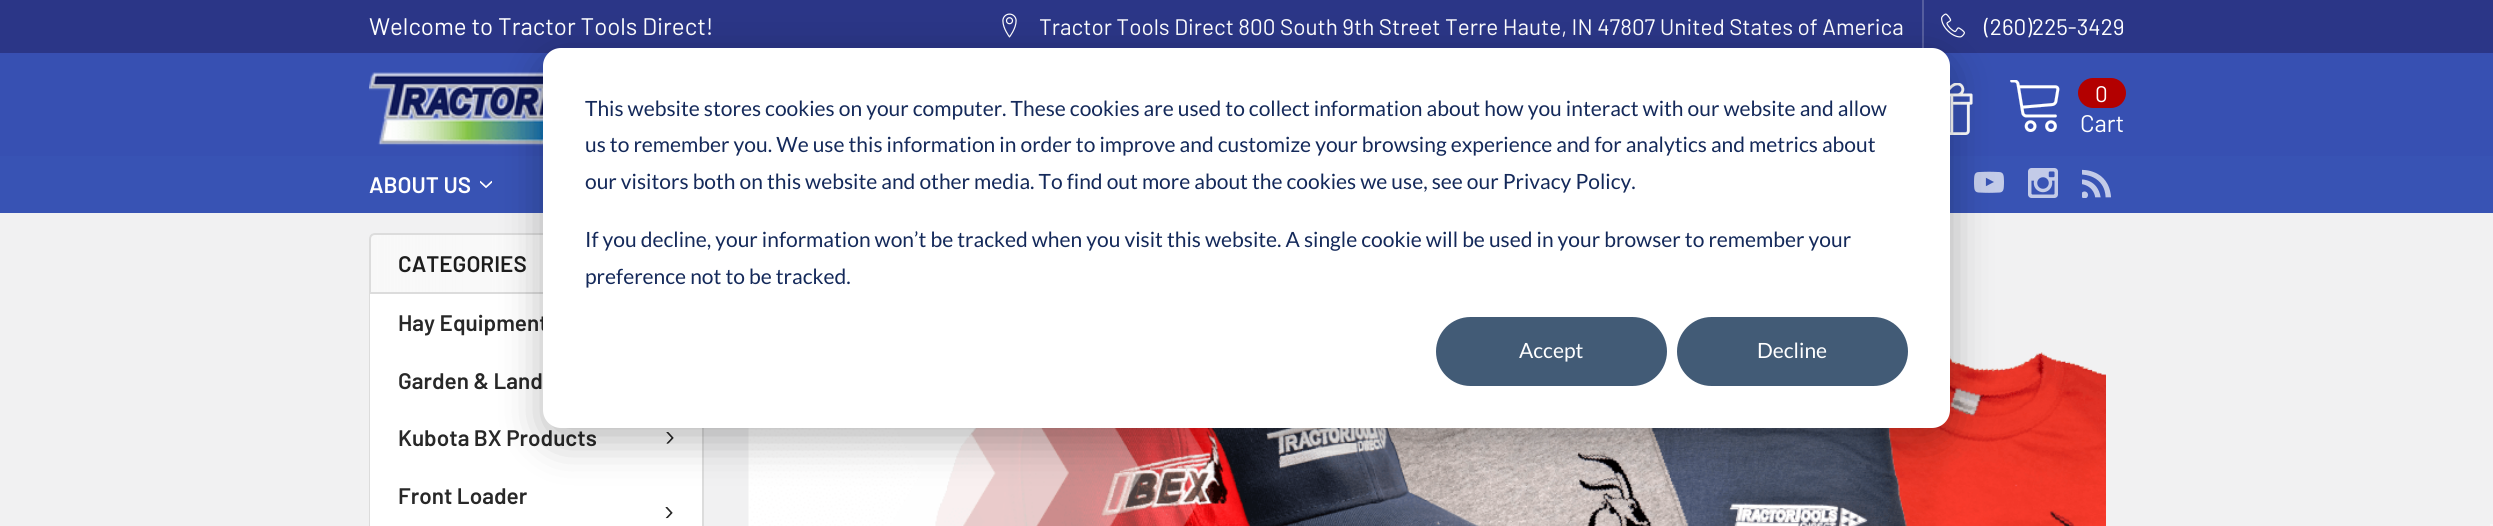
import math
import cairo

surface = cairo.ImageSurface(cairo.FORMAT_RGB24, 2493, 526)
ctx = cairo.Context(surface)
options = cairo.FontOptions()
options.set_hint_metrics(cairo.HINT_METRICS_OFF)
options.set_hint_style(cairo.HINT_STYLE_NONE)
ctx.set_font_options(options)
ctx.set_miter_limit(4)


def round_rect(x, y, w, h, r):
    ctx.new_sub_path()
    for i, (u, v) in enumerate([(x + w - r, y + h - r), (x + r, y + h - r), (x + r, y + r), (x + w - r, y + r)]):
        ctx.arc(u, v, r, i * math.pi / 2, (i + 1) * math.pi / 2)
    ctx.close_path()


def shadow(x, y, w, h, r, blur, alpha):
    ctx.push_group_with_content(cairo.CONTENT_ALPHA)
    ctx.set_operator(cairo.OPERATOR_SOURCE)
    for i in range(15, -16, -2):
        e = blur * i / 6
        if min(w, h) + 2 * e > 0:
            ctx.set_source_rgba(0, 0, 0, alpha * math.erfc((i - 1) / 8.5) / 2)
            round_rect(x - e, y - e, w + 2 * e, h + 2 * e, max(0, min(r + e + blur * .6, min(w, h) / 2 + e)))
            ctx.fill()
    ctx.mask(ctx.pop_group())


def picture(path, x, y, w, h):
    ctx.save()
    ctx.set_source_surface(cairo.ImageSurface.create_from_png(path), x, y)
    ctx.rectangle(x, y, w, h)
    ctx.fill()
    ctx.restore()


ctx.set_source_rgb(0.945, 0.945, 0.949)
ctx.paint()
ctx.set_source_rgb(0.216, 0.314, 0.698)
ctx.rectangle(0, 55, 2493, 101)
ctx.fill()
ctx.set_source_rgb(0.169, 0.212, 0.529)
ctx.rectangle(0, 0, 2493, 53)
ctx.fill()
ctx.set_source_rgb(0.22, 0.31, 0.698)
ctx.rectangle(0, 53, 2493, 2)
ctx.fill()
ctx.select_font_face("Barlow")
ctx.set_font_size(24)
ctx.set_source_rgb(1, 1, 1)
ctx.move_to(369, 35)
ctx.show_text("Welcome to Tractor Tools Direct!")
picture("img1.png", 1002, 13, 15, 25)
ctx.set_font_size(22.5)
ctx.move_to(1039, 35)
ctx.show_text("Tractor Tools Direct 800 South 9th Street Terre Haute, IN 47807 United States of America")
ctx.set_source_rgb(0.333, 0.369, 0.624)
ctx.rectangle(1922, 0, 2, 53)
ctx.fill()
picture("img2.png", 1941, 13, 24, 25)
ctx.set_source_rgb(1, 1, 1)
ctx.move_to(1984, 35)
ctx.show_text("(260)225-3429")
picture("img3.png", 369, 72, 174, 74)
picture("img4.png", 1950, 83, 23, 52)
picture("img5.png", 2010, 80, 50, 52)
ctx.set_source_rgb(0.702, 0, 0)
round_rect(2078, 78, 48, 30, 15)
ctx.fill()
ctx.set_source_rgb(1, 1, 1)
ctx.move_to(2095, 102)
ctx.show_text("0")
ctx.set_font_size(24)
ctx.move_to(2080, 132)
ctx.show_text("Cart")
ctx.set_source_rgb(0.22, 0.325, 0.706)
ctx.rectangle(0, 156, 2493, 57)
ctx.fill()
ctx.select_font_face("Barlow SemiBold")
ctx.set_font_size(22.5)
ctx.set_source_rgb(1, 1, 1)
ctx.move_to(369, 193)
ctx.show_text("ABOUT US")
picture("img6.png", 480, 180, 12, 9)
picture("img7.png", 1974, 171, 30, 22)
picture("img8.png", 2028, 168, 30, 30)
picture("img9.png", 2082, 169, 29, 29)
round_rect(369, 233, 335, 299, 6)
ctx.fill()
gradient = cairo.LinearGradient(369, 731, 704, 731)
gradient.add_color_stop_rgba(0, 0.973, 0.973, 0.973, 1)
gradient.add_color_stop_rgba(1, 0.973, 0.973, 0.973, 0.6)
ctx.set_source(gradient)
round_rect(369, 233, 335, 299, 6)
ctx.fill()
ctx.new_path()
ctx.move_to(375, 234)
ctx.line_to(698, 234)
ctx.curve_to(701, 234, 703, 236, 703, 239)
ctx.line_to(703, 293)
ctx.line_to(370, 293)
ctx.line_to(370, 239)
ctx.curve_to(370, 236, 372, 234, 375, 234)
ctx.close_path()
ctx.set_source_rgb(0.863, 0.863, 0.863)
ctx.stroke()
ctx.set_source_rgb(0.114, 0.114, 0.114)
ctx.move_to(398, 272)
ctx.show_text("CATEGORIES")
ctx.set_source_rgb(1, 1, 1)
ctx.rectangle(370, 294, 332, 232)
ctx.fill()
ctx.set_source_rgb(0.863, 0.863, 0.863)
ctx.set_fill_rule(cairo.FILL_RULE_EVEN_ODD)
ctx.new_path()
ctx.move_to(369, 294)
ctx.line_to(704, 294)
ctx.line_to(704, 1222)
ctx.curve_to(704, 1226, 701, 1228, 698, 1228)
ctx.line_to(375, 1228)
ctx.curve_to(372, 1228, 369, 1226, 369, 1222)
ctx.close_path()
ctx.move_to(370, 294)
ctx.line_to(702, 294)
ctx.line_to(702, 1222)
ctx.curve_to(702, 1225, 700, 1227, 698, 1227)
ctx.line_to(375, 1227)
ctx.curve_to(373, 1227, 370, 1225, 370, 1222)
ctx.close_path()
ctx.fill()
ctx.set_source_rgb(0.157, 0.157, 0.157)
ctx.move_to(398, 331)
ctx.show_text("Hay Equipment")
ctx.move_to(398, 389)
ctx.show_text("Garden & Land")
ctx.move_to(398, 446)
ctx.show_text("Kubota BX Products")
picture("img10.png", 666, 432, 8, 12)
ctx.move_to(398, 504)
ctx.show_text("Front Loader")
picture("img11.png", 665, 507, 8, 12)
picture("img12.png", 748, 352, 1358, 174)
ctx.set_source_rgb(0, 0, 0)
shadow(543, 60, 1407, 380, 18, 21, 0.28)
ctx.set_source_rgb(1, 1, 1)
round_rect(543, 48, 1407, 380, 18)
ctx.fill()
ctx.select_font_face("Lato")
ctx.set_font_size(21)
ctx.set_source_rgb(0.082, 0.161, 0.353)
ctx.move_to(585, 116)
ctx.show_text("This website stores cookies on your computer. These cookies are used to collect information about how you interact with our website and allow")
ctx.move_to(585, 152)
ctx.show_text("us to remember you. We use this information in order to improve and customize your browsing experience and for analytics and metrics about")
ctx.move_to(585, 189)
ctx.show_text("our visitors both on this website and other media. To find out more about the cookies we use, see our Privacy Policy.")
ctx.move_to(585, 247)
ctx.show_text("If you decline, your information won’t be tracked when you visit this website. A single cookie will be used in your browser to remember your")
ctx.move_to(585, 284)
ctx.show_text("preference not to be tracked.")
ctx.set_source_rgb(0.259, 0.357, 0.463)
round_rect(1437, 318, 229, 67, 33.5)
ctx.fill_preserve()
ctx.stroke()
ctx.set_source_rgb(1, 1, 1)
ctx.move_to(1519, 358)
ctx.show_text("Accept")
ctx.set_source_rgb(0.259, 0.357, 0.463)
round_rect(1678, 318, 229, 67, 33.5)
ctx.fill_preserve()
ctx.stroke()
ctx.set_source_rgb(1, 1, 1)
ctx.move_to(1757, 358)
ctx.show_text("Decline")
ctx.set_source_rgb(0.961, 0.961, 0.961)
ctx.rectangle(2490, 524, 3, 2)
ctx.fill()
surface.write_to_png("page.png")
